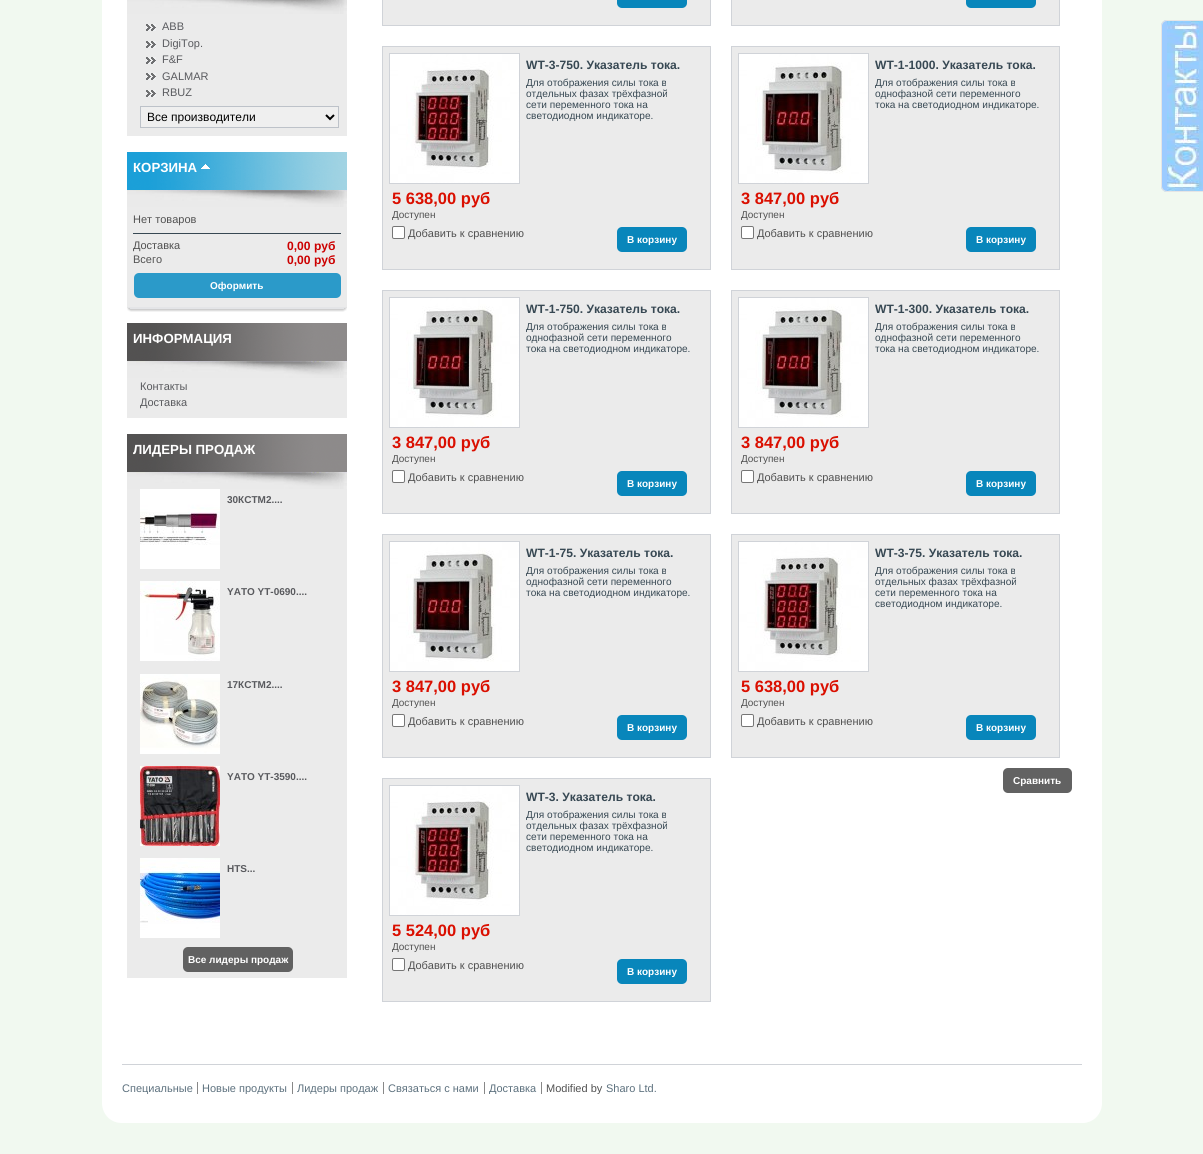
import math
import cairo

surface = cairo.ImageSurface(cairo.FORMAT_RGB24, 1203, 1154)
ctx = cairo.Context(surface)
options = cairo.FontOptions()
options.set_hint_metrics(cairo.HINT_METRICS_OFF)
options.set_hint_style(cairo.HINT_STYLE_NONE)
ctx.set_font_options(options)
ctx.set_miter_limit(4)


def round_rect(x, y, w, h, r):
    ctx.new_sub_path()
    for i, (u, v) in enumerate([(x + w - r, y + h - r), (x + r, y + h - r), (x + r, y + r), (x + w - r, y + r)]):
        ctx.arc(u, v, r, i * math.pi / 2, (i + 1) * math.pi / 2)
    ctx.close_path()


def picture(path, x, y, w, h):
    ctx.save()
    ctx.set_source_surface(cairo.ImageSurface.create_from_png(path), x, y)
    ctx.rectangle(x, y, w, h)
    ctx.fill()
    ctx.restore()


ctx.set_source_rgb(0.945, 0.973, 0.941)
ctx.paint()
ctx.set_source_rgb(1, 1, 1)
ctx.rectangle(102, 0, 1000, 1094)
ctx.fill()
picture("img1.png", 127, 0, 220, 14)
ctx.set_source_rgb(0.918, 0.918, 0.918)
ctx.rectangle(127, 14, 220, 122)
ctx.fill()
picture("img2.png", 146, 24, 10, 7)
ctx.select_font_face("Liberation Sans")
ctx.set_font_size(11)
ctx.set_source_rgb(0.349, 0.353, 0.369)
ctx.move_to(162, 30)
ctx.show_text("ABB")
picture("img2.png", 146, 41, 10, 7)
ctx.move_to(162, 47)
ctx.show_text("DigiTop.")
picture("img2.png", 146, 57, 10, 7)
ctx.move_to(162, 63)
ctx.show_text("F&F")
picture("img2.png", 146, 73, 10, 7)
ctx.move_to(162, 80)
ctx.show_text("GALMAR")
picture("img2.png", 146, 90, 10, 7)
ctx.move_to(162, 96)
ctx.show_text("RBUZ")
ctx.set_source_rgb(0.937, 0.937, 0.937)
ctx.rectangle(140.5, 106.5, 198, 21)
ctx.fill_preserve()
ctx.set_source_rgb(0.741, 0.761, 0.788)
ctx.set_line_width(1)
ctx.stroke()
ctx.new_path()
ctx.move_to(326, 115)
ctx.line_to(330, 119)
ctx.line_to(334, 115)
ctx.set_source_rgb(0, 0, 0)
ctx.set_line_width(2)
ctx.stroke()
ctx.set_font_size(12)
ctx.move_to(147, 121)
ctx.show_text("Все производители")
picture("img3.png", 127, 307, 220, 5)
picture("img4.png", 127, 152, 220, 55)
ctx.select_font_face("Liberation Sans", cairo.FONT_SLANT_NORMAL, cairo.FONT_WEIGHT_BOLD)
ctx.set_font_size(13.25)
ctx.set_source_rgb(1, 1, 1)
ctx.move_to(133, 172)
ctx.show_text("КОРЗИНА")
picture("img5.png", 201, 164, 9, 5)
ctx.set_source_rgb(0.918, 0.918, 0.918)
ctx.rectangle(127, 207, 220, 100)
ctx.fill()
ctx.select_font_face("Liberation Sans")
ctx.set_font_size(11)
ctx.set_source_rgb(0.318, 0.318, 0.318)
ctx.move_to(133, 223)
ctx.show_text("Нет товаров")
ctx.set_source_rgb(0.216, 0.282, 0.325)
ctx.rectangle(133, 233, 208, 1)
ctx.fill()
ctx.set_source_rgb(0.318, 0.318, 0.318)
ctx.move_to(133, 249)
ctx.show_text("Доставка")
ctx.select_font_face("Liberation Sans", cairo.FONT_SLANT_NORMAL, cairo.FONT_WEIGHT_BOLD)
ctx.set_font_size(12.1)
ctx.set_source_rgb(0.8, 0, 0)
ctx.move_to(287, 250)
ctx.show_text("0,00 руб")
ctx.select_font_face("Liberation Sans")
ctx.set_font_size(11)
ctx.set_source_rgb(0.318, 0.318, 0.318)
ctx.move_to(133, 263)
ctx.show_text("Всего")
ctx.select_font_face("Liberation Sans", cairo.FONT_SLANT_NORMAL, cairo.FONT_WEIGHT_BOLD)
ctx.set_font_size(12.1)
ctx.set_source_rgb(0.8, 0, 0)
ctx.move_to(287, 264)
ctx.show_text("0,00 руб")
ctx.set_source_rgb(0.169, 0.604, 0.788)
round_rect(134, 273, 207, 25, 5)
ctx.fill()
ctx.set_font_size(10)
ctx.set_source_rgb(1, 1, 1)
ctx.move_to(210, 289)
ctx.show_text("Оформить")
picture("img6.png", 127, 323, 220, 55)
ctx.set_font_size(13.25)
ctx.move_to(133, 343)
ctx.show_text("ИНФОРМАЦИЯ")
ctx.set_source_rgb(0.918, 0.918, 0.918)
ctx.rectangle(127, 378, 220, 40)
ctx.fill()
ctx.select_font_face("Liberation Sans")
ctx.set_font_size(11)
ctx.set_source_rgb(0.349, 0.353, 0.369)
ctx.move_to(140, 390)
ctx.show_text("Контакты")
ctx.move_to(140, 406)
ctx.show_text("Доставка")
picture("img6.png", 127, 434, 220, 55)
ctx.select_font_face("Liberation Sans", cairo.FONT_SLANT_NORMAL, cairo.FONT_WEIGHT_BOLD)
ctx.set_font_size(13.25)
ctx.set_source_rgb(1, 1, 1)
ctx.move_to(133, 454)
ctx.show_text("ЛИДЕРЫ ПРОДАЖ")
ctx.set_source_rgb(0.918, 0.918, 0.918)
ctx.rectangle(127, 489, 220, 489)
ctx.fill()
picture("img7.png", 140, 489, 80, 80)
ctx.set_font_size(10)
ctx.set_source_rgb(0.349, 0.353, 0.369)
ctx.move_to(227, 503)
ctx.show_text("30КСТМ2....")
picture("img8.png", 140, 581, 80, 80)
ctx.move_to(227, 595)
ctx.show_text("YATO YT-0690....")
picture("img9.png", 140, 674, 80, 80)
ctx.move_to(227, 688)
ctx.show_text("17КСТМ2....")
picture("img10.png", 140, 766, 80, 80)
ctx.move_to(227, 780)
ctx.show_text("YATO YT-3590....")
picture("img11.png", 140, 858, 80, 80)
ctx.move_to(227, 872)
ctx.show_text("HTS...")
ctx.set_source_rgb(0.38, 0.38, 0.38)
round_rect(183, 947, 110, 25, 5)
ctx.fill()
ctx.set_source_rgb(1, 1, 1)
ctx.move_to(188, 963)
ctx.show_text("Все лидеры продаж")
ctx.set_source_rgb(0.918, 0.918, 0.918)
ctx.rectangle(382.5, -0.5, 328, 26)
ctx.fill_preserve()
ctx.set_source_rgb(0.816, 0.827, 0.847)
ctx.set_line_width(1)
ctx.stroke()
ctx.set_source_rgb(0.035, 0.525, 0.733)
round_rect(617, -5, 70, 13, 5)
ctx.fill()
ctx.set_source_rgb(0.918, 0.918, 0.918)
ctx.rectangle(731.5, -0.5, 328, 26)
ctx.fill_preserve()
ctx.set_source_rgb(0.816, 0.827, 0.847)
ctx.stroke()
ctx.set_source_rgb(0.035, 0.525, 0.733)
round_rect(966, -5, 70, 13, 5)
ctx.fill()
ctx.set_source_rgb(0.918, 0.918, 0.918)
ctx.rectangle(382.5, 46.5, 328, 223)
ctx.fill_preserve()
ctx.set_source_rgb(0.816, 0.827, 0.847)
ctx.stroke()
ctx.rectangle(389.5, 53.5, 130, 130)
ctx.stroke()
picture("img12.png", 390, 54, 129, 129)
ctx.set_font_size(12.1)
ctx.set_source_rgb(0.216, 0.282, 0.325)
ctx.move_to(526, 69)
ctx.show_text("WT-3-750. Указатель тока.")
ctx.select_font_face("Liberation Sans")
ctx.set_font_size(10.1)
ctx.move_to(526, 86)
ctx.show_text("Для отображения силы тока в")
ctx.move_to(526, 97)
ctx.show_text("отдельных фазах трёхфазной")
ctx.move_to(526, 108)
ctx.show_text("сети переменного тока на")
ctx.move_to(526, 119)
ctx.show_text("светодиодном индикаторе.")
ctx.select_font_face("Liberation Sans", cairo.FONT_SLANT_NORMAL, cairo.FONT_WEIGHT_BOLD)
ctx.set_font_size(16.5)
ctx.set_source_rgb(0.855, 0.059, 0)
ctx.move_to(392, 204)
ctx.show_text("5 638,00 руб")
ctx.select_font_face("Liberation Sans")
ctx.set_font_size(10)
ctx.set_source_rgb(0.318, 0.318, 0.318)
ctx.move_to(392, 218)
ctx.show_text("Доступен")
ctx.set_source_rgb(1, 1, 1)
round_rect(392.5, 226.5, 12, 12, 1.5)
ctx.fill_preserve()
ctx.set_source_rgb(0.463, 0.463, 0.463)
ctx.stroke()
ctx.set_font_size(11)
ctx.set_source_rgb(0.318, 0.318, 0.318)
ctx.move_to(408, 237)
ctx.show_text("Добавить к сравнению")
ctx.set_source_rgb(0.035, 0.525, 0.733)
round_rect(617, 227, 70, 25, 5)
ctx.fill()
ctx.select_font_face("Liberation Sans", cairo.FONT_SLANT_NORMAL, cairo.FONT_WEIGHT_BOLD)
ctx.set_font_size(10)
ctx.set_source_rgb(1, 1, 1)
ctx.move_to(627, 243)
ctx.show_text("В корзину")
ctx.set_source_rgb(0.918, 0.918, 0.918)
ctx.rectangle(731.5, 46.5, 328, 223)
ctx.fill_preserve()
ctx.set_source_rgb(0.816, 0.827, 0.847)
ctx.stroke()
ctx.rectangle(738.5, 53.5, 130, 130)
ctx.stroke()
picture("img13.png", 739, 54, 129, 129)
ctx.set_font_size(12.1)
ctx.set_source_rgb(0.216, 0.282, 0.325)
ctx.move_to(875, 69)
ctx.show_text("WT-1-1000. Указатель тока.")
ctx.select_font_face("Liberation Sans")
ctx.set_font_size(10.1)
ctx.move_to(875, 86)
ctx.show_text("Для отображения силы тока в")
ctx.move_to(875, 97)
ctx.show_text("однофазной сети переменного")
ctx.move_to(875, 108)
ctx.show_text("тока на светодиодном индикаторе.")
ctx.select_font_face("Liberation Sans", cairo.FONT_SLANT_NORMAL, cairo.FONT_WEIGHT_BOLD)
ctx.set_font_size(16.5)
ctx.set_source_rgb(0.855, 0.059, 0)
ctx.move_to(741, 204)
ctx.show_text("3 847,00 руб")
ctx.select_font_face("Liberation Sans")
ctx.set_font_size(10)
ctx.set_source_rgb(0.318, 0.318, 0.318)
ctx.move_to(741, 218)
ctx.show_text("Доступен")
ctx.set_source_rgb(1, 1, 1)
round_rect(741.5, 226.5, 12, 12, 1.5)
ctx.fill_preserve()
ctx.set_source_rgb(0.463, 0.463, 0.463)
ctx.stroke()
ctx.set_font_size(11)
ctx.set_source_rgb(0.318, 0.318, 0.318)
ctx.move_to(757, 237)
ctx.show_text("Добавить к сравнению")
ctx.set_source_rgb(0.035, 0.525, 0.733)
round_rect(966, 227, 70, 25, 5)
ctx.fill()
ctx.select_font_face("Liberation Sans", cairo.FONT_SLANT_NORMAL, cairo.FONT_WEIGHT_BOLD)
ctx.set_font_size(10)
ctx.set_source_rgb(1, 1, 1)
ctx.move_to(976, 243)
ctx.show_text("В корзину")
ctx.set_source_rgb(0.918, 0.918, 0.918)
ctx.rectangle(382.5, 290.5, 328, 223)
ctx.fill_preserve()
ctx.set_source_rgb(0.816, 0.827, 0.847)
ctx.stroke()
ctx.rectangle(389.5, 297.5, 130, 130)
ctx.stroke()
picture("img13.png", 390, 298, 129, 129)
ctx.set_font_size(12.1)
ctx.set_source_rgb(0.216, 0.282, 0.325)
ctx.move_to(526, 313)
ctx.show_text("WT-1-750. Указатель тока.")
ctx.select_font_face("Liberation Sans")
ctx.set_font_size(10.1)
ctx.move_to(526, 330)
ctx.show_text("Для отображения силы тока в")
ctx.move_to(526, 341)
ctx.show_text("однофазной сети переменного")
ctx.move_to(526, 352)
ctx.show_text("тока на светодиодном индикаторе.")
ctx.select_font_face("Liberation Sans", cairo.FONT_SLANT_NORMAL, cairo.FONT_WEIGHT_BOLD)
ctx.set_font_size(16.5)
ctx.set_source_rgb(0.855, 0.059, 0)
ctx.move_to(392, 448)
ctx.show_text("3 847,00 руб")
ctx.select_font_face("Liberation Sans")
ctx.set_font_size(10)
ctx.set_source_rgb(0.318, 0.318, 0.318)
ctx.move_to(392, 462)
ctx.show_text("Доступен")
ctx.set_source_rgb(1, 1, 1)
round_rect(392.5, 470.5, 12, 12, 1.5)
ctx.fill_preserve()
ctx.set_source_rgb(0.463, 0.463, 0.463)
ctx.stroke()
ctx.set_font_size(11)
ctx.set_source_rgb(0.318, 0.318, 0.318)
ctx.move_to(408, 481)
ctx.show_text("Добавить к сравнению")
ctx.set_source_rgb(0.035, 0.525, 0.733)
round_rect(617, 471, 70, 25, 5)
ctx.fill()
ctx.select_font_face("Liberation Sans", cairo.FONT_SLANT_NORMAL, cairo.FONT_WEIGHT_BOLD)
ctx.set_font_size(10)
ctx.set_source_rgb(1, 1, 1)
ctx.move_to(627, 487)
ctx.show_text("В корзину")
ctx.set_source_rgb(0.918, 0.918, 0.918)
ctx.rectangle(731.5, 290.5, 328, 223)
ctx.fill_preserve()
ctx.set_source_rgb(0.816, 0.827, 0.847)
ctx.stroke()
ctx.rectangle(738.5, 297.5, 130, 130)
ctx.stroke()
picture("img13.png", 739, 298, 129, 129)
ctx.set_font_size(12.1)
ctx.set_source_rgb(0.216, 0.282, 0.325)
ctx.move_to(875, 313)
ctx.show_text("WT-1-300. Указатель тока.")
ctx.select_font_face("Liberation Sans")
ctx.set_font_size(10.1)
ctx.move_to(875, 330)
ctx.show_text("Для отображения силы тока в")
ctx.move_to(875, 341)
ctx.show_text("однофазной сети переменного")
ctx.move_to(875, 352)
ctx.show_text("тока на светодиодном индикаторе.")
ctx.select_font_face("Liberation Sans", cairo.FONT_SLANT_NORMAL, cairo.FONT_WEIGHT_BOLD)
ctx.set_font_size(16.5)
ctx.set_source_rgb(0.855, 0.059, 0)
ctx.move_to(741, 448)
ctx.show_text("3 847,00 руб")
ctx.select_font_face("Liberation Sans")
ctx.set_font_size(10)
ctx.set_source_rgb(0.318, 0.318, 0.318)
ctx.move_to(741, 462)
ctx.show_text("Доступен")
ctx.set_source_rgb(1, 1, 1)
round_rect(741.5, 470.5, 12, 12, 1.5)
ctx.fill_preserve()
ctx.set_source_rgb(0.463, 0.463, 0.463)
ctx.stroke()
ctx.set_font_size(11)
ctx.set_source_rgb(0.318, 0.318, 0.318)
ctx.move_to(757, 481)
ctx.show_text("Добавить к сравнению")
ctx.set_source_rgb(0.035, 0.525, 0.733)
round_rect(966, 471, 70, 25, 5)
ctx.fill()
ctx.select_font_face("Liberation Sans", cairo.FONT_SLANT_NORMAL, cairo.FONT_WEIGHT_BOLD)
ctx.set_font_size(10)
ctx.set_source_rgb(1, 1, 1)
ctx.move_to(976, 487)
ctx.show_text("В корзину")
ctx.set_source_rgb(0.918, 0.918, 0.918)
ctx.rectangle(382.5, 534.5, 328, 223)
ctx.fill_preserve()
ctx.set_source_rgb(0.816, 0.827, 0.847)
ctx.stroke()
ctx.rectangle(389.5, 541.5, 130, 130)
ctx.stroke()
picture("img13.png", 390, 542, 129, 129)
ctx.set_font_size(12.1)
ctx.set_source_rgb(0.216, 0.282, 0.325)
ctx.move_to(526, 557)
ctx.show_text("WT-1-75. Указатель тока.")
ctx.select_font_face("Liberation Sans")
ctx.set_font_size(10.1)
ctx.move_to(526, 574)
ctx.show_text("Для отображения силы тока в")
ctx.move_to(526, 585)
ctx.show_text("однофазной сети переменного")
ctx.move_to(526, 596)
ctx.show_text("тока на светодиодном индикаторе.")
ctx.select_font_face("Liberation Sans", cairo.FONT_SLANT_NORMAL, cairo.FONT_WEIGHT_BOLD)
ctx.set_font_size(16.5)
ctx.set_source_rgb(0.855, 0.059, 0)
ctx.move_to(392, 692)
ctx.show_text("3 847,00 руб")
ctx.select_font_face("Liberation Sans")
ctx.set_font_size(10)
ctx.set_source_rgb(0.318, 0.318, 0.318)
ctx.move_to(392, 706)
ctx.show_text("Доступен")
ctx.set_source_rgb(1, 1, 1)
round_rect(392.5, 714.5, 12, 12, 1.5)
ctx.fill_preserve()
ctx.set_source_rgb(0.463, 0.463, 0.463)
ctx.stroke()
ctx.set_font_size(11)
ctx.set_source_rgb(0.318, 0.318, 0.318)
ctx.move_to(408, 725)
ctx.show_text("Добавить к сравнению")
ctx.set_source_rgb(0.035, 0.525, 0.733)
round_rect(617, 715, 70, 25, 5)
ctx.fill()
ctx.select_font_face("Liberation Sans", cairo.FONT_SLANT_NORMAL, cairo.FONT_WEIGHT_BOLD)
ctx.set_font_size(10)
ctx.set_source_rgb(1, 1, 1)
ctx.move_to(627, 731)
ctx.show_text("В корзину")
ctx.set_source_rgb(0.918, 0.918, 0.918)
ctx.rectangle(731.5, 534.5, 328, 223)
ctx.fill_preserve()
ctx.set_source_rgb(0.816, 0.827, 0.847)
ctx.stroke()
ctx.rectangle(738.5, 541.5, 130, 130)
ctx.stroke()
picture("img12.png", 739, 542, 129, 129)
ctx.set_font_size(12.1)
ctx.set_source_rgb(0.216, 0.282, 0.325)
ctx.move_to(875, 557)
ctx.show_text("WT-3-75. Указатель тока.")
ctx.select_font_face("Liberation Sans")
ctx.set_font_size(10.1)
ctx.move_to(875, 574)
ctx.show_text("Для отображения силы тока в")
ctx.move_to(875, 585)
ctx.show_text("отдельных фазах трёхфазной")
ctx.move_to(875, 596)
ctx.show_text("сети переменного тока на")
ctx.move_to(875, 607)
ctx.show_text("светодиодном индикаторе.")
ctx.select_font_face("Liberation Sans", cairo.FONT_SLANT_NORMAL, cairo.FONT_WEIGHT_BOLD)
ctx.set_font_size(16.5)
ctx.set_source_rgb(0.855, 0.059, 0)
ctx.move_to(741, 692)
ctx.show_text("5 638,00 руб")
ctx.select_font_face("Liberation Sans")
ctx.set_font_size(10)
ctx.set_source_rgb(0.318, 0.318, 0.318)
ctx.move_to(741, 706)
ctx.show_text("Доступен")
ctx.set_source_rgb(1, 1, 1)
round_rect(741.5, 714.5, 12, 12, 1.5)
ctx.fill_preserve()
ctx.set_source_rgb(0.463, 0.463, 0.463)
ctx.stroke()
ctx.set_font_size(11)
ctx.set_source_rgb(0.318, 0.318, 0.318)
ctx.move_to(757, 725)
ctx.show_text("Добавить к сравнению")
ctx.set_source_rgb(0.035, 0.525, 0.733)
round_rect(966, 715, 70, 25, 5)
ctx.fill()
ctx.select_font_face("Liberation Sans", cairo.FONT_SLANT_NORMAL, cairo.FONT_WEIGHT_BOLD)
ctx.set_font_size(10)
ctx.set_source_rgb(1, 1, 1)
ctx.move_to(976, 731)
ctx.show_text("В корзину")
ctx.set_source_rgb(0.918, 0.918, 0.918)
ctx.rectangle(382.5, 778.5, 328, 223)
ctx.fill_preserve()
ctx.set_source_rgb(0.816, 0.827, 0.847)
ctx.stroke()
ctx.rectangle(389.5, 785.5, 130, 130)
ctx.stroke()
picture("img12.png", 390, 786, 129, 129)
ctx.set_font_size(12.1)
ctx.set_source_rgb(0.216, 0.282, 0.325)
ctx.move_to(526, 801)
ctx.show_text("WT-3. Указатель тока.")
ctx.select_font_face("Liberation Sans")
ctx.set_font_size(10.1)
ctx.move_to(526, 818)
ctx.show_text("Для отображения силы тока в")
ctx.move_to(526, 829)
ctx.show_text("отдельных фазах трёхфазной")
ctx.move_to(526, 840)
ctx.show_text("сети переменного тока на")
ctx.move_to(526, 851)
ctx.show_text("светодиодном индикаторе.")
ctx.select_font_face("Liberation Sans", cairo.FONT_SLANT_NORMAL, cairo.FONT_WEIGHT_BOLD)
ctx.set_font_size(16.5)
ctx.set_source_rgb(0.855, 0.059, 0)
ctx.move_to(392, 936)
ctx.show_text("5 524,00 руб")
ctx.select_font_face("Liberation Sans")
ctx.set_font_size(10)
ctx.set_source_rgb(0.318, 0.318, 0.318)
ctx.move_to(392, 950)
ctx.show_text("Доступен")
ctx.set_source_rgb(1, 1, 1)
round_rect(392.5, 958.5, 12, 12, 1.5)
ctx.fill_preserve()
ctx.set_source_rgb(0.463, 0.463, 0.463)
ctx.stroke()
ctx.set_font_size(11)
ctx.set_source_rgb(0.318, 0.318, 0.318)
ctx.move_to(408, 969)
ctx.show_text("Добавить к сравнению")
ctx.set_source_rgb(0.035, 0.525, 0.733)
round_rect(617, 959, 70, 25, 5)
ctx.fill()
ctx.select_font_face("Liberation Sans", cairo.FONT_SLANT_NORMAL, cairo.FONT_WEIGHT_BOLD)
ctx.set_font_size(10)
ctx.set_source_rgb(1, 1, 1)
ctx.move_to(627, 975)
ctx.show_text("В корзину")
ctx.set_source_rgb(0.384, 0.384, 0.384)
round_rect(1003, 768, 69, 25, 5)
ctx.fill()
ctx.set_source_rgb(1, 1, 1)
ctx.move_to(1013, 784)
ctx.show_text("Сравнить")
ctx.set_source_rgb(0.816, 0.827, 0.847)
ctx.rectangle(122, 1064, 960, 1)
ctx.fill()
ctx.set_source_rgb(0.612, 0.796, 1)
round_rect(1161, 20, 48, 172, 6)
ctx.fill()
picture("img14.png", 1167, 21, 36, 170)
round_rect(1161.5, 20.5, 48, 171, 5.5)
ctx.set_source_rgb(0.898, 0.898, 0.898)
ctx.stroke()
ctx.select_font_face("Liberation Sans")
ctx.set_font_size(11)
ctx.set_source_rgb(0.365, 0.443, 0.494)
ctx.move_to(122, 1092)
ctx.show_text("Специальные")
ctx.move_to(202, 1092)
ctx.show_text("Новые продукты")
ctx.set_source_rgb(0.533, 0.533, 0.533)
ctx.rectangle(197, 1082, 1, 12)
ctx.fill()
ctx.set_source_rgb(0.365, 0.443, 0.494)
ctx.move_to(297, 1092)
ctx.show_text("Лидеры продаж")
ctx.set_source_rgb(0.533, 0.533, 0.533)
ctx.rectangle(292, 1082, 1, 12)
ctx.fill()
ctx.set_source_rgb(0.365, 0.443, 0.494)
ctx.move_to(388, 1092)
ctx.show_text("Связаться с нами")
ctx.set_source_rgb(0.533, 0.533, 0.533)
ctx.rectangle(383, 1082, 1, 12)
ctx.fill()
ctx.set_source_rgb(0.365, 0.443, 0.494)
ctx.move_to(489, 1092)
ctx.show_text("Доставка")
ctx.set_source_rgb(0.533, 0.533, 0.533)
ctx.rectangle(484, 1082, 1, 12)
ctx.fill()
ctx.set_source_rgb(0.318, 0.318, 0.318)
ctx.move_to(546, 1092)
ctx.show_text("Modified by")
ctx.set_source_rgb(0.533, 0.533, 0.533)
ctx.rectangle(541, 1082, 1, 12)
ctx.fill()
ctx.set_source_rgb(0.365, 0.443, 0.494)
ctx.move_to(606, 1092)
ctx.show_text("Sharo Ltd.")
picture("img15.png", 102, 1094, 1000, 29)
surface.write_to_png("page.png")
